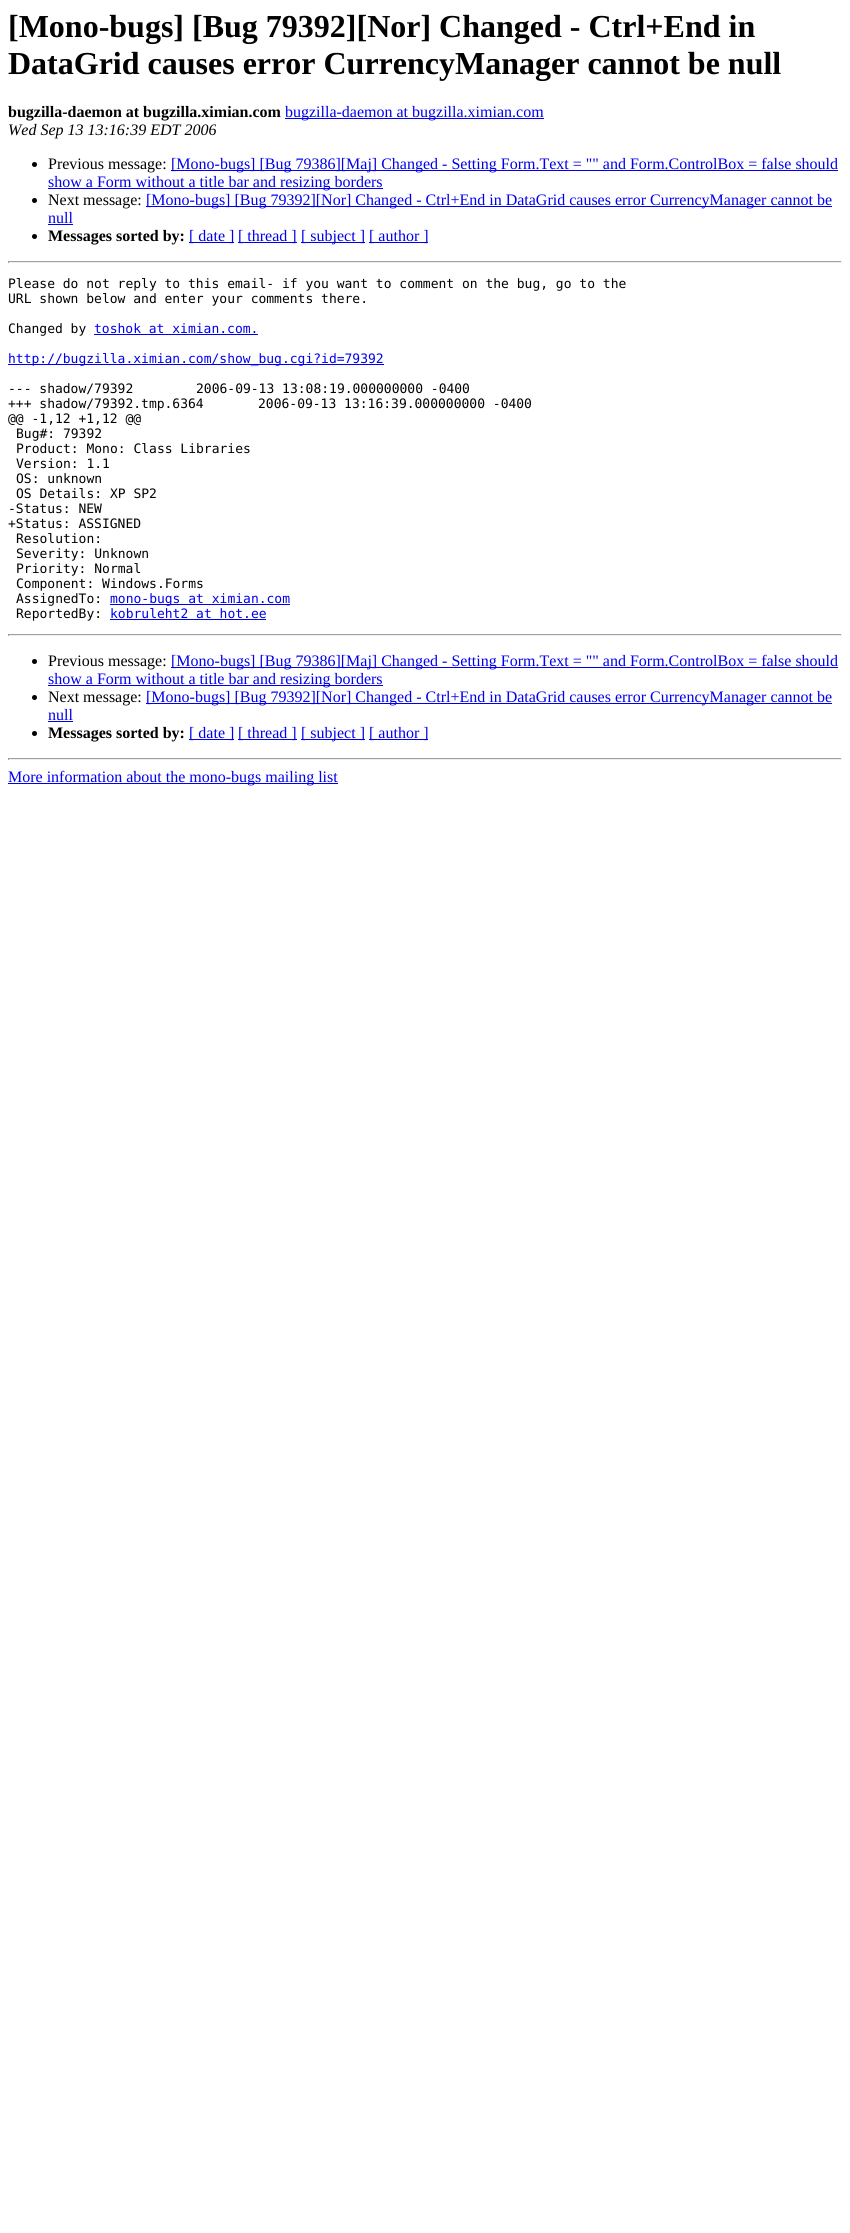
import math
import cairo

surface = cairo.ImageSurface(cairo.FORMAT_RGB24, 850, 2233)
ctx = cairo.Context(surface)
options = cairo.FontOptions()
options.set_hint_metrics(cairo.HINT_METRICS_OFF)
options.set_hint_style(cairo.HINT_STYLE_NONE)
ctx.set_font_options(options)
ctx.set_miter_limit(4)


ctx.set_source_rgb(1, 1, 1)
ctx.paint()
ctx.select_font_face("Liberation Serif", cairo.FONT_SLANT_NORMAL, cairo.FONT_WEIGHT_BOLD)
ctx.set_font_size(32)
ctx.set_source_rgb(0, 0, 0)
ctx.move_to(8, 37)
ctx.show_text("[Mono-bugs] [Bug 79392][Nor] Changed - Ctrl+End in")
ctx.move_to(8, 74)
ctx.show_text("DataGrid causes error CurrencyManager cannot be null")
ctx.set_font_size(16)
ctx.move_to(8, 117)
ctx.show_text("bugzilla-daemon at bugzilla.ximian.com")
ctx.set_source_rgb(0, 0, 0.933)
ctx.rectangle(285, 118, 259, 1)
ctx.fill()
ctx.select_font_face("Liberation Serif")
ctx.move_to(285, 117)
ctx.show_text("bugzilla-daemon at bugzilla.ximian.com")
ctx.select_font_face("Liberation Serif", cairo.FONT_SLANT_ITALIC)
ctx.set_source_rgb(0, 0, 0)
ctx.move_to(8, 135)
ctx.show_text("Wed Sep 13 13:16:39 EDT 2006")
ctx.new_path()
ctx.arc(34.5, 164.5, 2.5, 0, 2 * math.pi)
ctx.fill()
ctx.select_font_face("Liberation Serif")
ctx.move_to(48, 169)
ctx.show_text("Previous message:")
ctx.set_source_rgb(0, 0, 0.933)
ctx.rectangle(171, 170, 667, 1)
ctx.fill()
ctx.move_to(171, 169)
ctx.show_text("[Mono-bugs] [Bug 79386][Maj] Changed - Setting Form.Text = \"\" and Form.ControlBox = false should")
ctx.rectangle(48, 188, 335, 1)
ctx.fill()
ctx.move_to(48, 187)
ctx.show_text("show a Form without a title bar and resizing borders")
ctx.set_source_rgb(0, 0, 0)
ctx.new_path()
ctx.arc(34.5, 200.5, 2.5, 0, 2 * math.pi)
ctx.fill()
ctx.move_to(48, 205)
ctx.show_text("Next message:")
ctx.set_source_rgb(0, 0, 0.933)
ctx.rectangle(146, 206, 686, 1)
ctx.fill()
ctx.move_to(146, 205)
ctx.show_text("[Mono-bugs] [Bug 79392][Nor] Changed - Ctrl+End in DataGrid causes error CurrencyManager cannot be")
ctx.move_to(48, 223)
ctx.show_text("null")
ctx.rectangle(48, 224, 25, 1)
ctx.fill()
ctx.set_source_rgb(0, 0, 0)
ctx.arc(34.5, 236.5, 2.5, 0, 2 * math.pi)
ctx.fill()
ctx.select_font_face("Liberation Serif", cairo.FONT_SLANT_NORMAL, cairo.FONT_WEIGHT_BOLD)
ctx.move_to(48, 241)
ctx.show_text("Messages sorted by:")
ctx.set_source_rgb(0, 0, 0.933)
ctx.rectangle(189, 242, 45, 1)
ctx.fill()
ctx.select_font_face("Liberation Serif")
ctx.move_to(189, 241)
ctx.show_text("[ date ]")
ctx.rectangle(238, 242, 59, 1)
ctx.fill()
ctx.move_to(238, 241)
ctx.show_text("[ thread ]")
ctx.rectangle(301, 242, 64, 1)
ctx.fill()
ctx.move_to(301, 241)
ctx.show_text("[ subject ]")
ctx.rectangle(369, 242, 59, 1)
ctx.fill()
ctx.move_to(369, 241)
ctx.show_text("[ author ]")
ctx.set_source_rgb(0.624, 0.624, 0.624)
ctx.rectangle(8, 261, 834, 1)
ctx.fill()
ctx.set_source_rgb(0.933, 0.933, 0.933)
ctx.rectangle(841, 261, 1, 2)
ctx.fill()
ctx.rectangle(8, 262, 834, 1)
ctx.fill()
ctx.set_source_rgb(0.624, 0.624, 0.624)
ctx.rectangle(8, 261, 1, 2)
ctx.fill()
ctx.select_font_face("DejaVu Sans Mono")
ctx.set_font_size(13)
ctx.set_source_rgb(0, 0, 0)
ctx.move_to(8, 288)
ctx.show_text("Please do not reply to this email- if you want to comment on the bug, go to the")
ctx.move_to(8, 303)
ctx.show_text("URL shown below and enter your comments there.")
ctx.move_to(8, 333)
ctx.show_text("Changed by")
ctx.set_source_rgb(0, 0, 0.933)
ctx.move_to(94, 333)
ctx.show_text("toshok at ximian.com.")
ctx.rectangle(94, 334, 164, 1)
ctx.fill()
ctx.rectangle(8, 364, 376, 1)
ctx.fill()
ctx.move_to(8, 363)
ctx.show_text("http://bugzilla.ximian.com/show_bug.cgi?id=79392")
ctx.set_source_rgb(0, 0, 0)
ctx.move_to(8, 393)
ctx.show_text("--- shadow/79392")
ctx.move_to(196, 393)
ctx.show_text("2006-09-13 13:08:19.000000000 -0400")
ctx.move_to(8, 408)
ctx.show_text("+++ shadow/79392.tmp.6364")
ctx.move_to(258, 408)
ctx.show_text("2006-09-13 13:16:39.000000000 -0400")
ctx.move_to(8, 423)
ctx.show_text("@@ -1,12 +1,12 @@")
ctx.move_to(16, 438)
ctx.show_text("Bug#: 79392")
ctx.move_to(16, 453)
ctx.show_text("Product: Mono: Class Libraries")
ctx.move_to(16, 468)
ctx.show_text("Version: 1.1")
ctx.move_to(16, 483)
ctx.show_text("OS: unknown")
ctx.move_to(16, 498)
ctx.show_text("OS Details: XP SP2")
ctx.move_to(8, 513)
ctx.show_text("-Status: NEW")
ctx.move_to(8, 528)
ctx.show_text("+Status: ASSIGNED")
ctx.move_to(16, 543)
ctx.show_text("Resolution:")
ctx.move_to(16, 558)
ctx.show_text("Severity: Unknown")
ctx.move_to(16, 573)
ctx.show_text("Priority: Normal")
ctx.move_to(16, 588)
ctx.show_text("Component: Windows.Forms")
ctx.move_to(16, 603)
ctx.show_text("AssignedTo:")
ctx.set_source_rgb(0, 0, 0.933)
ctx.rectangle(110, 604, 180, 1)
ctx.fill()
ctx.move_to(110, 603)
ctx.show_text("mono-bugs at ximian.com")
ctx.set_source_rgb(0, 0, 0)
ctx.move_to(16, 618)
ctx.show_text("ReportedBy:")
ctx.set_source_rgb(0, 0, 0.933)
ctx.move_to(110, 618)
ctx.show_text("kobruleht2 at hot.ee")
ctx.rectangle(110, 619, 156, 1)
ctx.fill()
ctx.set_source_rgb(0.624, 0.624, 0.624)
ctx.rectangle(8, 634, 834, 1)
ctx.fill()
ctx.set_source_rgb(0.933, 0.933, 0.933)
ctx.rectangle(841, 634, 1, 2)
ctx.fill()
ctx.rectangle(8, 635, 834, 1)
ctx.fill()
ctx.set_source_rgb(0.624, 0.624, 0.624)
ctx.rectangle(8, 634, 1, 2)
ctx.fill()
ctx.set_source_rgb(0, 0, 0)
ctx.arc(34.5, 661.5, 2.5, 0, 2 * math.pi)
ctx.fill()
ctx.select_font_face("Liberation Serif")
ctx.set_font_size(16)
ctx.move_to(48, 666)
ctx.show_text("Previous message:")
ctx.set_source_rgb(0, 0, 0.933)
ctx.rectangle(171, 667, 667, 1)
ctx.fill()
ctx.move_to(171, 666)
ctx.show_text("[Mono-bugs] [Bug 79386][Maj] Changed - Setting Form.Text = \"\" and Form.ControlBox = false should")
ctx.rectangle(48, 685, 335, 1)
ctx.fill()
ctx.move_to(48, 684)
ctx.show_text("show a Form without a title bar and resizing borders")
ctx.set_source_rgb(0, 0, 0)
ctx.new_path()
ctx.arc(34.5, 697.5, 2.5, 0, 2 * math.pi)
ctx.fill()
ctx.move_to(48, 702)
ctx.show_text("Next message:")
ctx.set_source_rgb(0, 0, 0.933)
ctx.rectangle(146, 703, 686, 1)
ctx.fill()
ctx.move_to(146, 702)
ctx.show_text("[Mono-bugs] [Bug 79392][Nor] Changed - Ctrl+End in DataGrid causes error CurrencyManager cannot be")
ctx.move_to(48, 720)
ctx.show_text("null")
ctx.rectangle(48, 721, 25, 1)
ctx.fill()
ctx.set_source_rgb(0, 0, 0)
ctx.arc(34.5, 733.5, 2.5, 0, 2 * math.pi)
ctx.fill()
ctx.select_font_face("Liberation Serif", cairo.FONT_SLANT_NORMAL, cairo.FONT_WEIGHT_BOLD)
ctx.move_to(48, 738)
ctx.show_text("Messages sorted by:")
ctx.set_source_rgb(0, 0, 0.933)
ctx.rectangle(189, 739, 45, 1)
ctx.fill()
ctx.select_font_face("Liberation Serif")
ctx.move_to(189, 738)
ctx.show_text("[ date ]")
ctx.rectangle(238, 739, 59, 1)
ctx.fill()
ctx.move_to(238, 738)
ctx.show_text("[ thread ]")
ctx.rectangle(301, 739, 64, 1)
ctx.fill()
ctx.move_to(301, 738)
ctx.show_text("[ subject ]")
ctx.rectangle(369, 739, 59, 1)
ctx.fill()
ctx.move_to(369, 738)
ctx.show_text("[ author ]")
ctx.set_source_rgb(0.624, 0.624, 0.624)
ctx.rectangle(8, 758, 834, 1)
ctx.fill()
ctx.set_source_rgb(0.933, 0.933, 0.933)
ctx.rectangle(841, 758, 1, 2)
ctx.fill()
ctx.rectangle(8, 759, 834, 1)
ctx.fill()
ctx.set_source_rgb(0.624, 0.624, 0.624)
ctx.rectangle(8, 758, 1, 2)
ctx.fill()
ctx.set_source_rgb(0, 0, 0.933)
ctx.rectangle(8, 783, 330, 1)
ctx.fill()
ctx.move_to(8, 782)
ctx.show_text("More information about the mono-bugs mailing list")
surface.write_to_png("page.png")
